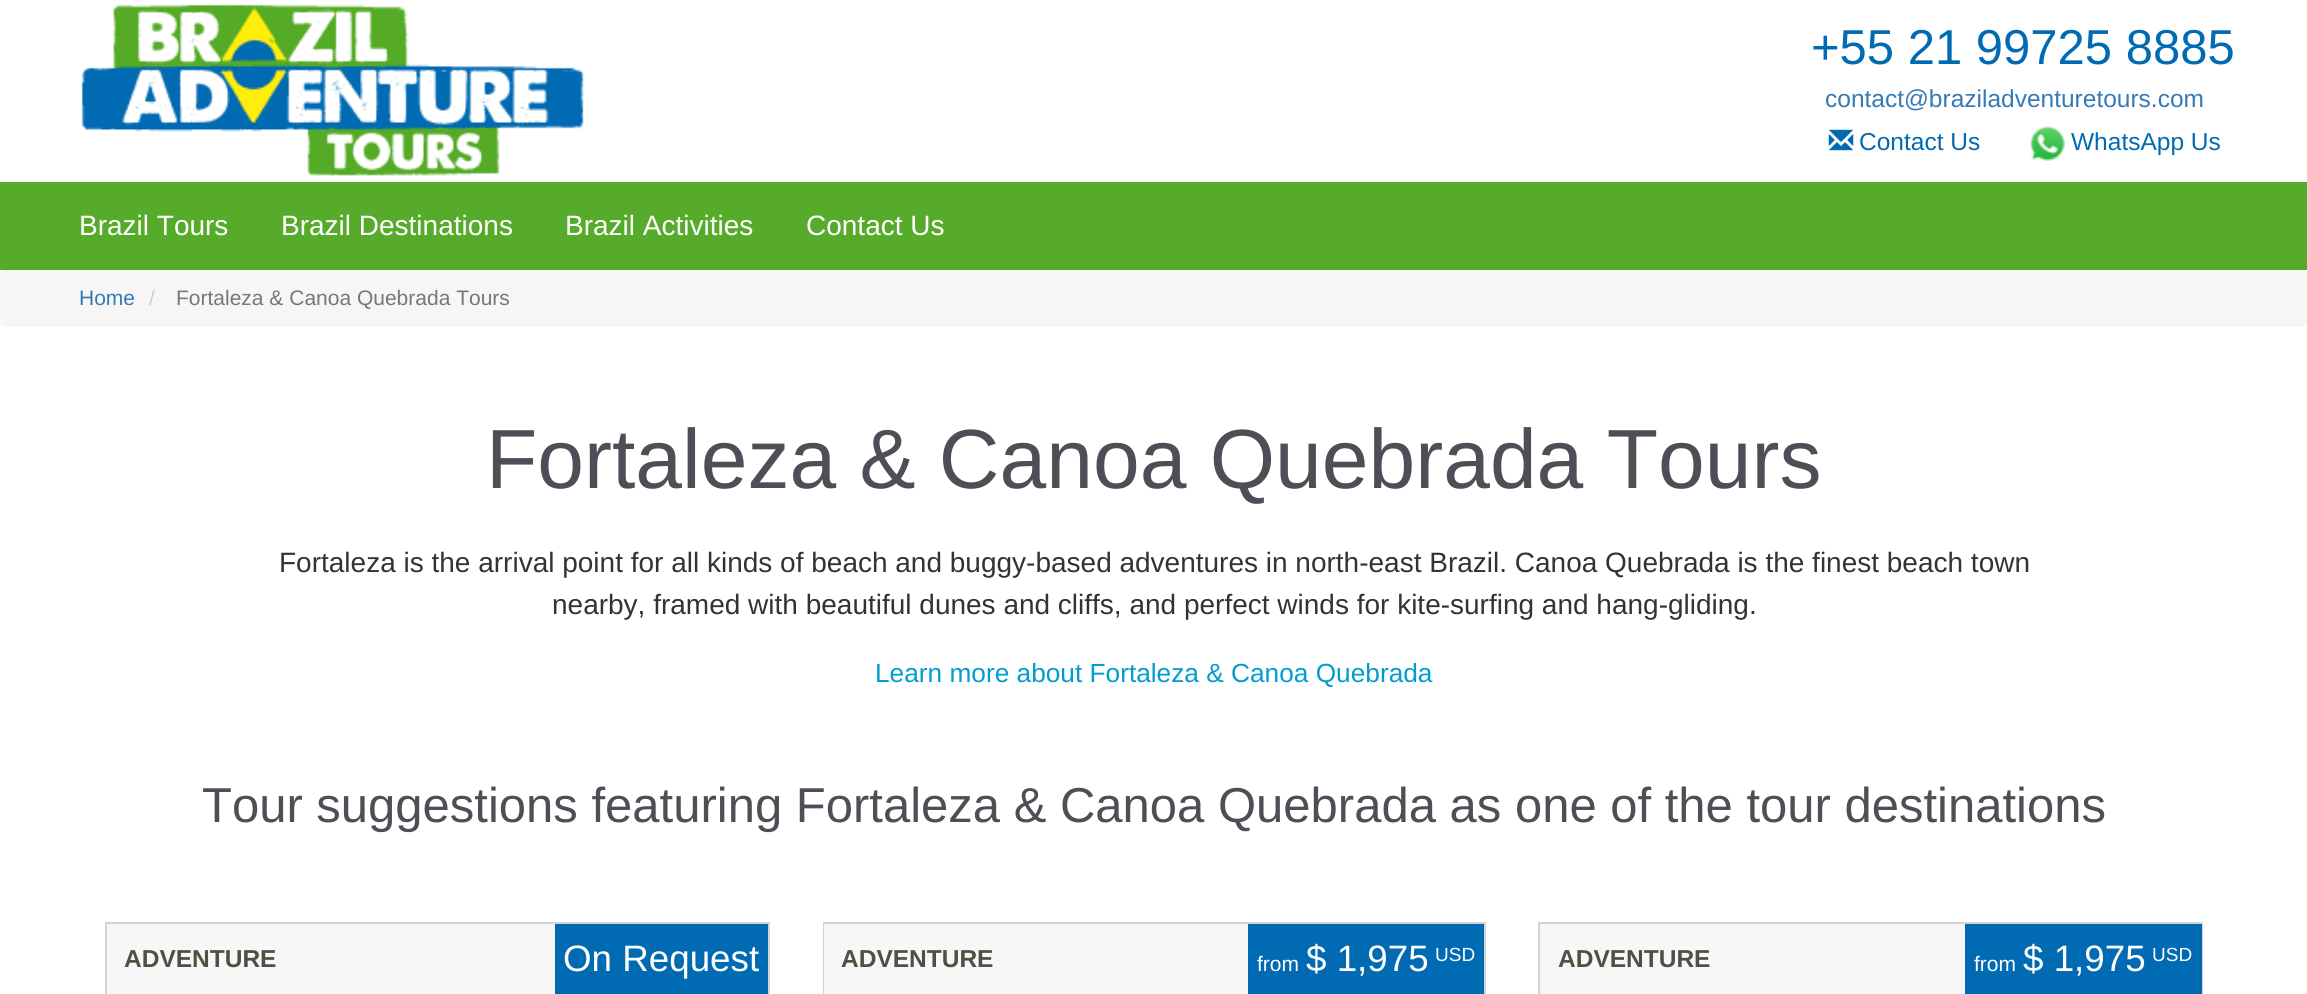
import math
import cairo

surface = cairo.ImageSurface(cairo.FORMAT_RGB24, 2307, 994)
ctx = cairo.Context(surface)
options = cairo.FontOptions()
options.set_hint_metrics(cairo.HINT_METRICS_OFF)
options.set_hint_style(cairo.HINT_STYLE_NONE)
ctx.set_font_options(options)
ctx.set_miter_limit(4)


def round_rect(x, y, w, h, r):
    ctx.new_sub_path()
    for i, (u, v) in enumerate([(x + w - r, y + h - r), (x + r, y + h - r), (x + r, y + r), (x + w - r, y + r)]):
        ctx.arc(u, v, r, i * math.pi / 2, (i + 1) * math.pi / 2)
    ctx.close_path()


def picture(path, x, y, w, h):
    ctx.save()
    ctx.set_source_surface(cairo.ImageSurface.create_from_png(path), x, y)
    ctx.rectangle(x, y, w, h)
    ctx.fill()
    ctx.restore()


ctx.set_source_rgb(1, 1, 1)
ctx.paint()
picture("img1.png", 81, 4, 503, 172)
ctx.select_font_face("Liberation Sans")
ctx.set_font_size(49)
ctx.set_source_rgb(0, 0.416, 0.702)
ctx.move_to(1811, 64)
ctx.show_text("+55 21 99725 8885")
ctx.set_font_size(24.5)
ctx.set_source_rgb(0.2, 0.478, 0.718)
ctx.move_to(1825, 107)
ctx.show_text("contact@braziladventuretours.com")
picture("img2.png", 1828, 129, 26, 22)
ctx.set_source_rgb(0, 0.416, 0.702)
ctx.move_to(1859, 150)
ctx.show_text("Contact Us")
picture("img3.png", 2030, 126, 35, 35)
ctx.move_to(2071, 150)
ctx.show_text("WhatsApp Us")
ctx.set_source_rgb(0.341, 0.671, 0.165)
ctx.rectangle(0, 182, 2307, 88)
ctx.fill()
ctx.set_font_size(28)
ctx.set_source_rgb(1, 1, 1)
ctx.move_to(79, 235)
ctx.show_text("Brazil Tours")
ctx.move_to(281, 235)
ctx.show_text("Brazil Destinations")
ctx.move_to(565, 235)
ctx.show_text("Brazil Activities")
ctx.move_to(806, 235)
ctx.show_text("Contact Us")
ctx.set_source_rgb(0.961, 0.961, 0.961)
round_rect(0, 270, 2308, 57, 7)
ctx.fill()
ctx.set_font_size(21)
ctx.set_source_rgb(0.2, 0.478, 0.718)
ctx.move_to(79, 305)
ctx.show_text("Home")
ctx.set_source_rgb(0.8, 0.8, 0.8)
ctx.move_to(149, 305)
ctx.show_text("/")
ctx.set_source_rgb(0.467, 0.467, 0.467)
ctx.move_to(176, 305)
ctx.show_text("Fortaleza & Canoa Quebrada Tours")
ctx.set_font_size(84)
ctx.set_source_rgb(0.298, 0.31, 0.337)
ctx.move_to(486, 488)
ctx.show_text("Fortaleza & Canoa Quebrada Tours")
ctx.set_font_size(28)
ctx.set_source_rgb(0.2, 0.2, 0.2)
ctx.move_to(279, 572)
ctx.show_text("Fortaleza is the arrival point for all kinds of beach and buggy-based adventures in north-east Brazil. Canoa Quebrada is the finest beach town")
ctx.move_to(552, 614)
ctx.show_text("nearby, framed with beautiful dunes and cliffs, and perfect winds for kite-surfing and hang-gliding.")
ctx.set_font_size(26.25)
ctx.set_source_rgb(0.008, 0.612, 0.816)
ctx.move_to(875, 682)
ctx.show_text("Learn more about Fortaleza & Canoa Quebrada")
ctx.set_font_size(49)
ctx.set_source_rgb(0.298, 0.31, 0.337)
ctx.move_to(202, 822)
ctx.show_text("Tour suggestions featuring Fortaleza & Canoa Quebrada as one of the tour destinations")
ctx.rectangle(106, 923, 663, 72)
ctx.set_source_rgb(0.831, 0.831, 0.831)
ctx.stroke()
ctx.set_source_rgb(0.965, 0.965, 0.965)
ctx.rectangle(107, 924, 448, 70)
ctx.fill()
ctx.select_font_face("Liberation Sans", cairo.FONT_SLANT_NORMAL, cairo.FONT_WEIGHT_BOLD)
ctx.set_font_size(24.5)
ctx.set_source_rgb(0.29, 0.322, 0.263)
ctx.move_to(124, 967)
ctx.show_text("ADVENTURE")
ctx.set_source_rgb(0, 0.416, 0.702)
ctx.rectangle(555, 924, 213, 70)
ctx.fill()
ctx.select_font_face("Liberation Sans")
ctx.set_font_size(36.75)
ctx.set_source_rgb(1, 1, 1)
ctx.move_to(563, 971)
ctx.show_text("On Request")
ctx.rectangle(824, 923, 661, 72)
ctx.set_source_rgb(0.831, 0.831, 0.831)
ctx.stroke()
ctx.set_source_rgb(0.965, 0.965, 0.965)
ctx.rectangle(824, 924, 424, 70)
ctx.fill()
ctx.select_font_face("Liberation Sans", cairo.FONT_SLANT_NORMAL, cairo.FONT_WEIGHT_BOLD)
ctx.set_font_size(24.5)
ctx.set_source_rgb(0.29, 0.322, 0.263)
ctx.move_to(841, 967)
ctx.show_text("ADVENTURE")
ctx.set_source_rgb(0, 0.416, 0.702)
ctx.rectangle(1248, 924, 236, 70)
ctx.fill()
ctx.select_font_face("Liberation Sans")
ctx.set_font_size(21)
ctx.set_source_rgb(1, 1, 1)
ctx.move_to(1257, 971)
ctx.show_text("from")
ctx.set_font_size(36.75)
ctx.move_to(1306, 971)
ctx.show_text("$ 1,975")
ctx.set_font_size(19)
ctx.move_to(1435, 961)
ctx.show_text("USD")
ctx.rectangle(1539, 923, 663, 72)
ctx.set_source_rgb(0.831, 0.831, 0.831)
ctx.stroke()
ctx.set_source_rgb(0.965, 0.965, 0.965)
ctx.rectangle(1540, 924, 425, 70)
ctx.fill()
ctx.select_font_face("Liberation Sans", cairo.FONT_SLANT_NORMAL, cairo.FONT_WEIGHT_BOLD)
ctx.set_font_size(24.5)
ctx.set_source_rgb(0.29, 0.322, 0.263)
ctx.move_to(1558, 967)
ctx.show_text("ADVENTURE")
ctx.set_source_rgb(0, 0.416, 0.702)
ctx.rectangle(1965, 924, 237, 70)
ctx.fill()
ctx.select_font_face("Liberation Sans")
ctx.set_font_size(21)
ctx.set_source_rgb(1, 1, 1)
ctx.move_to(1974, 971)
ctx.show_text("from")
ctx.set_font_size(36.75)
ctx.move_to(2023, 971)
ctx.show_text("$ 1,975")
ctx.set_font_size(19)
ctx.move_to(2152, 961)
ctx.show_text("USD")
surface.write_to_png("page.png")
